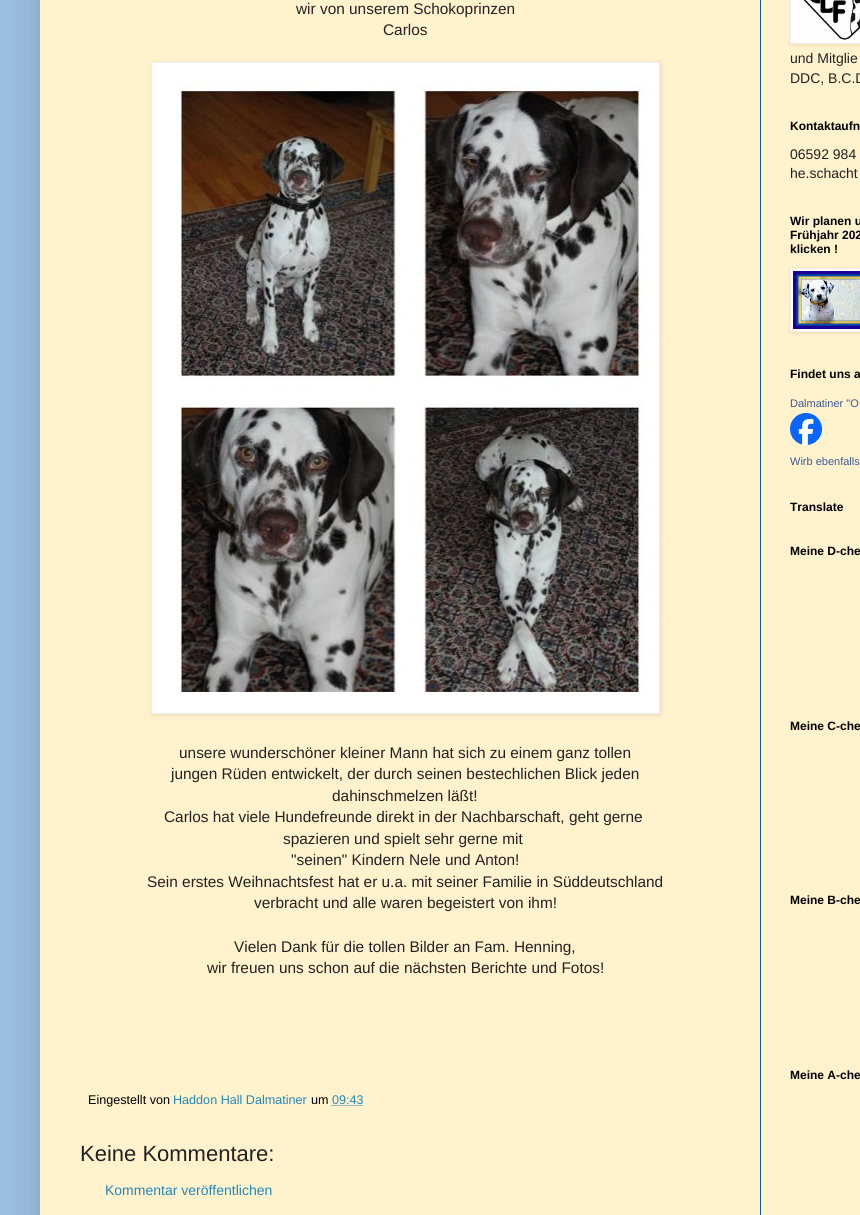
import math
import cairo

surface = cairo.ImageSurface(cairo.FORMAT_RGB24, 860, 1215)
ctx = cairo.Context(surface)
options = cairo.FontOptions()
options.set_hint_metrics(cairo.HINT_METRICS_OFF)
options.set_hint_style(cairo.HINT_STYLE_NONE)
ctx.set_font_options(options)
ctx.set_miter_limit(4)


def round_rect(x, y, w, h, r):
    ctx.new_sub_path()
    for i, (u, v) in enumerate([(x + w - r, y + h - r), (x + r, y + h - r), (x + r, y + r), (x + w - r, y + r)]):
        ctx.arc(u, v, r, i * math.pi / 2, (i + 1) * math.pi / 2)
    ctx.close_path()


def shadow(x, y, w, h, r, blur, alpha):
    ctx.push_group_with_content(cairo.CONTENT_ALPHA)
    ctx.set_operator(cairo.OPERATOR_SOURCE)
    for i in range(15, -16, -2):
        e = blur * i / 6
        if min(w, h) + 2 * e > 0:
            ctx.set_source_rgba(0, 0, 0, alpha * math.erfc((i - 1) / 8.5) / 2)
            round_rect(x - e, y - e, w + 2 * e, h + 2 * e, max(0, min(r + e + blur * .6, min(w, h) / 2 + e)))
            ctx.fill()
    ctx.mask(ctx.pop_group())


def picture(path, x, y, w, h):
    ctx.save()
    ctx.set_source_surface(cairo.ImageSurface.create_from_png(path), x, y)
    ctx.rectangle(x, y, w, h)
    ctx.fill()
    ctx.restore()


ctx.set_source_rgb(0.612, 0.745, 0.875)
ctx.paint()
ctx.set_source_rgb(0, 0, 0)
shadow(40, -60, 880, 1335, 0, 20, 0.15)
ctx.set_source_rgb(1, 0.949, 0.8)
ctx.rectangle(40, 0, 820, 1215)
ctx.fill()
ctx.set_source_rgb(0.031, 0.361, 0.675)
ctx.rectangle(760, 0, 1, 1215)
ctx.fill()
ctx.select_font_face("Liberation Sans")
ctx.set_font_size(15.4)
ctx.set_source_rgb(0.133, 0.133, 0.133)
ctx.move_to(296, 14)
ctx.show_text("wir von unserem Schokoprinzen")
ctx.move_to(383, 35)
ctx.show_text("Carlos")
ctx.set_source_rgb(0, 0, 0)
shadow(152, 63, 509, 652, 0, 2.5, 0.1)
ctx.set_source_rgb(1, 1, 1)
ctx.rectangle(151.5, 62.5, 508, 651)
ctx.fill_preserve()
ctx.set_source_rgb(0.933, 0.933, 0.933)
ctx.set_line_width(1)
ctx.stroke()
picture("img1.png", 173, 84, 479, 609)
ctx.set_source_rgb(0.133, 0.133, 0.133)
ctx.move_to(179, 758)
ctx.show_text("unsere wunderschöner kleiner Mann hat sich zu einem ganz tollen")
ctx.move_to(171, 779)
ctx.show_text("jungen Rüden entwickelt, der durch seinen bestechlichen Blick jeden")
ctx.move_to(332, 801)
ctx.show_text("dahinschmelzen läßt!")
ctx.move_to(164, 822)
ctx.show_text("Carlos hat viele Hundefreunde direkt in der Nachbarschaft, geht gerne")
ctx.move_to(283, 844)
ctx.show_text("spazieren und spielt sehr gerne mit")
ctx.move_to(291, 865)
ctx.show_text("\"seinen\" Kindern Nele und Anton!")
ctx.move_to(147, 887)
ctx.show_text("Sein erstes Weihnachtsfest hat er u.a. mit seiner Familie in Süddeutschland")
ctx.move_to(254, 908)
ctx.show_text("verbracht und alle waren begeistert von ihm!")
ctx.move_to(234, 952)
ctx.show_text("Vielen Dank für die tollen Bilder an Fam. Henning,")
ctx.move_to(207, 973)
ctx.show_text("wir freuen uns schon auf die nächsten Berichte und Fotos!")
ctx.set_font_size(12.6)
ctx.set_source_rgb(0, 0, 0)
ctx.move_to(88, 1104)
ctx.show_text("Eingestellt von")
ctx.set_source_rgb(0.133, 0.533, 0.733)
ctx.move_to(173, 1104)
ctx.show_text("Haddon Hall Dalmatiner")
ctx.set_source_rgb(0, 0, 0)
ctx.move_to(311, 1104)
ctx.show_text("um")
ctx.set_source_rgb(0.133, 0.533, 0.733)
ctx.move_to(332, 1104)
ctx.show_text("09:43")
ctx.new_path()
ctx.move_to(331.5, 1105.5)
ctx.line_to(363, 1105.5)
ctx.set_dash([1, 1])
ctx.stroke()
ctx.set_font_size(22)
ctx.set_source_rgb(0.133, 0.133, 0.133)
ctx.move_to(80, 1161)
ctx.show_text("Keine Kommentare:")
ctx.set_font_size(14)
ctx.set_source_rgb(0.133, 0.533, 0.733)
ctx.move_to(105, 1195)
ctx.show_text("Kommentar veröffentlichen")
ctx.set_source_rgb(0, 0, 0)
shadow(791, -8, 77, 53, 0, 2.5, 0.1)
ctx.set_source_rgb(1, 1, 1)
ctx.rectangle(790.5, -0.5, 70, 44)
ctx.fill_preserve()
ctx.set_source_rgb(0.933, 0.933, 0.933)
ctx.set_dash([])
ctx.stroke()
picture("img2.png", 803, 0, 57, 40)
ctx.set_source_rgb(0.133, 0.133, 0.133)
ctx.move_to(790, 63)
ctx.show_text("und Mitglie")
ctx.move_to(790, 83)
ctx.show_text("DDC, B.C.D")
ctx.select_font_face("Liberation Sans", cairo.FONT_SLANT_NORMAL, cairo.FONT_WEIGHT_BOLD)
ctx.set_font_size(12)
ctx.set_source_rgb(0, 0, 0)
ctx.move_to(790, 130)
ctx.show_text("Kontaktaufn")
ctx.select_font_face("Liberation Sans")
ctx.set_font_size(14)
ctx.set_source_rgb(0.133, 0.133, 0.133)
ctx.move_to(790, 159)
ctx.show_text("06592 984")
ctx.move_to(790, 178)
ctx.show_text("he.schacht")
ctx.select_font_face("Liberation Sans", cairo.FONT_SLANT_NORMAL, cairo.FONT_WEIGHT_BOLD)
ctx.set_font_size(12)
ctx.set_source_rgb(0, 0, 0)
ctx.move_to(790, 225)
ctx.show_text("Wir planen u")
ctx.move_to(790, 239)
ctx.show_text("Frühjahr 202")
ctx.move_to(790, 253)
ctx.show_text("klicken !")
ctx.set_source_rgb(0, 0, 0)
shadow(791, 269, 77, 64, 0, 2.5, 0.1)
ctx.set_source_rgb(1, 1, 1)
ctx.rectangle(790.5, 268.5, 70, 63)
ctx.fill_preserve()
ctx.set_source_rgb(0.933, 0.933, 0.933)
ctx.stroke()
picture("img3.png", 793, 271, 67, 58)
ctx.set_source_rgb(0, 0, 0)
ctx.move_to(790, 378)
ctx.show_text("Findet uns a")
ctx.select_font_face("Liberation Sans")
ctx.set_font_size(11)
ctx.set_source_rgb(0.231, 0.349, 0.596)
ctx.move_to(790, 407)
ctx.show_text("Dalmatiner \"O")
picture("img4.png", 790, 413, 32, 32)
ctx.move_to(790, 465)
ctx.show_text("Wirb ebenfalls")
ctx.select_font_face("Liberation Sans", cairo.FONT_SLANT_NORMAL, cairo.FONT_WEIGHT_BOLD)
ctx.set_font_size(12)
ctx.set_source_rgb(0, 0, 0)
ctx.move_to(790, 511)
ctx.show_text("Translate")
ctx.move_to(790, 555)
ctx.show_text("Meine D-che")
ctx.move_to(790, 730)
ctx.show_text("Meine C-che")
ctx.move_to(790, 904)
ctx.show_text("Meine B-che")
ctx.move_to(790, 1079)
ctx.show_text("Meine A-che")
surface.write_to_png("page.png")
